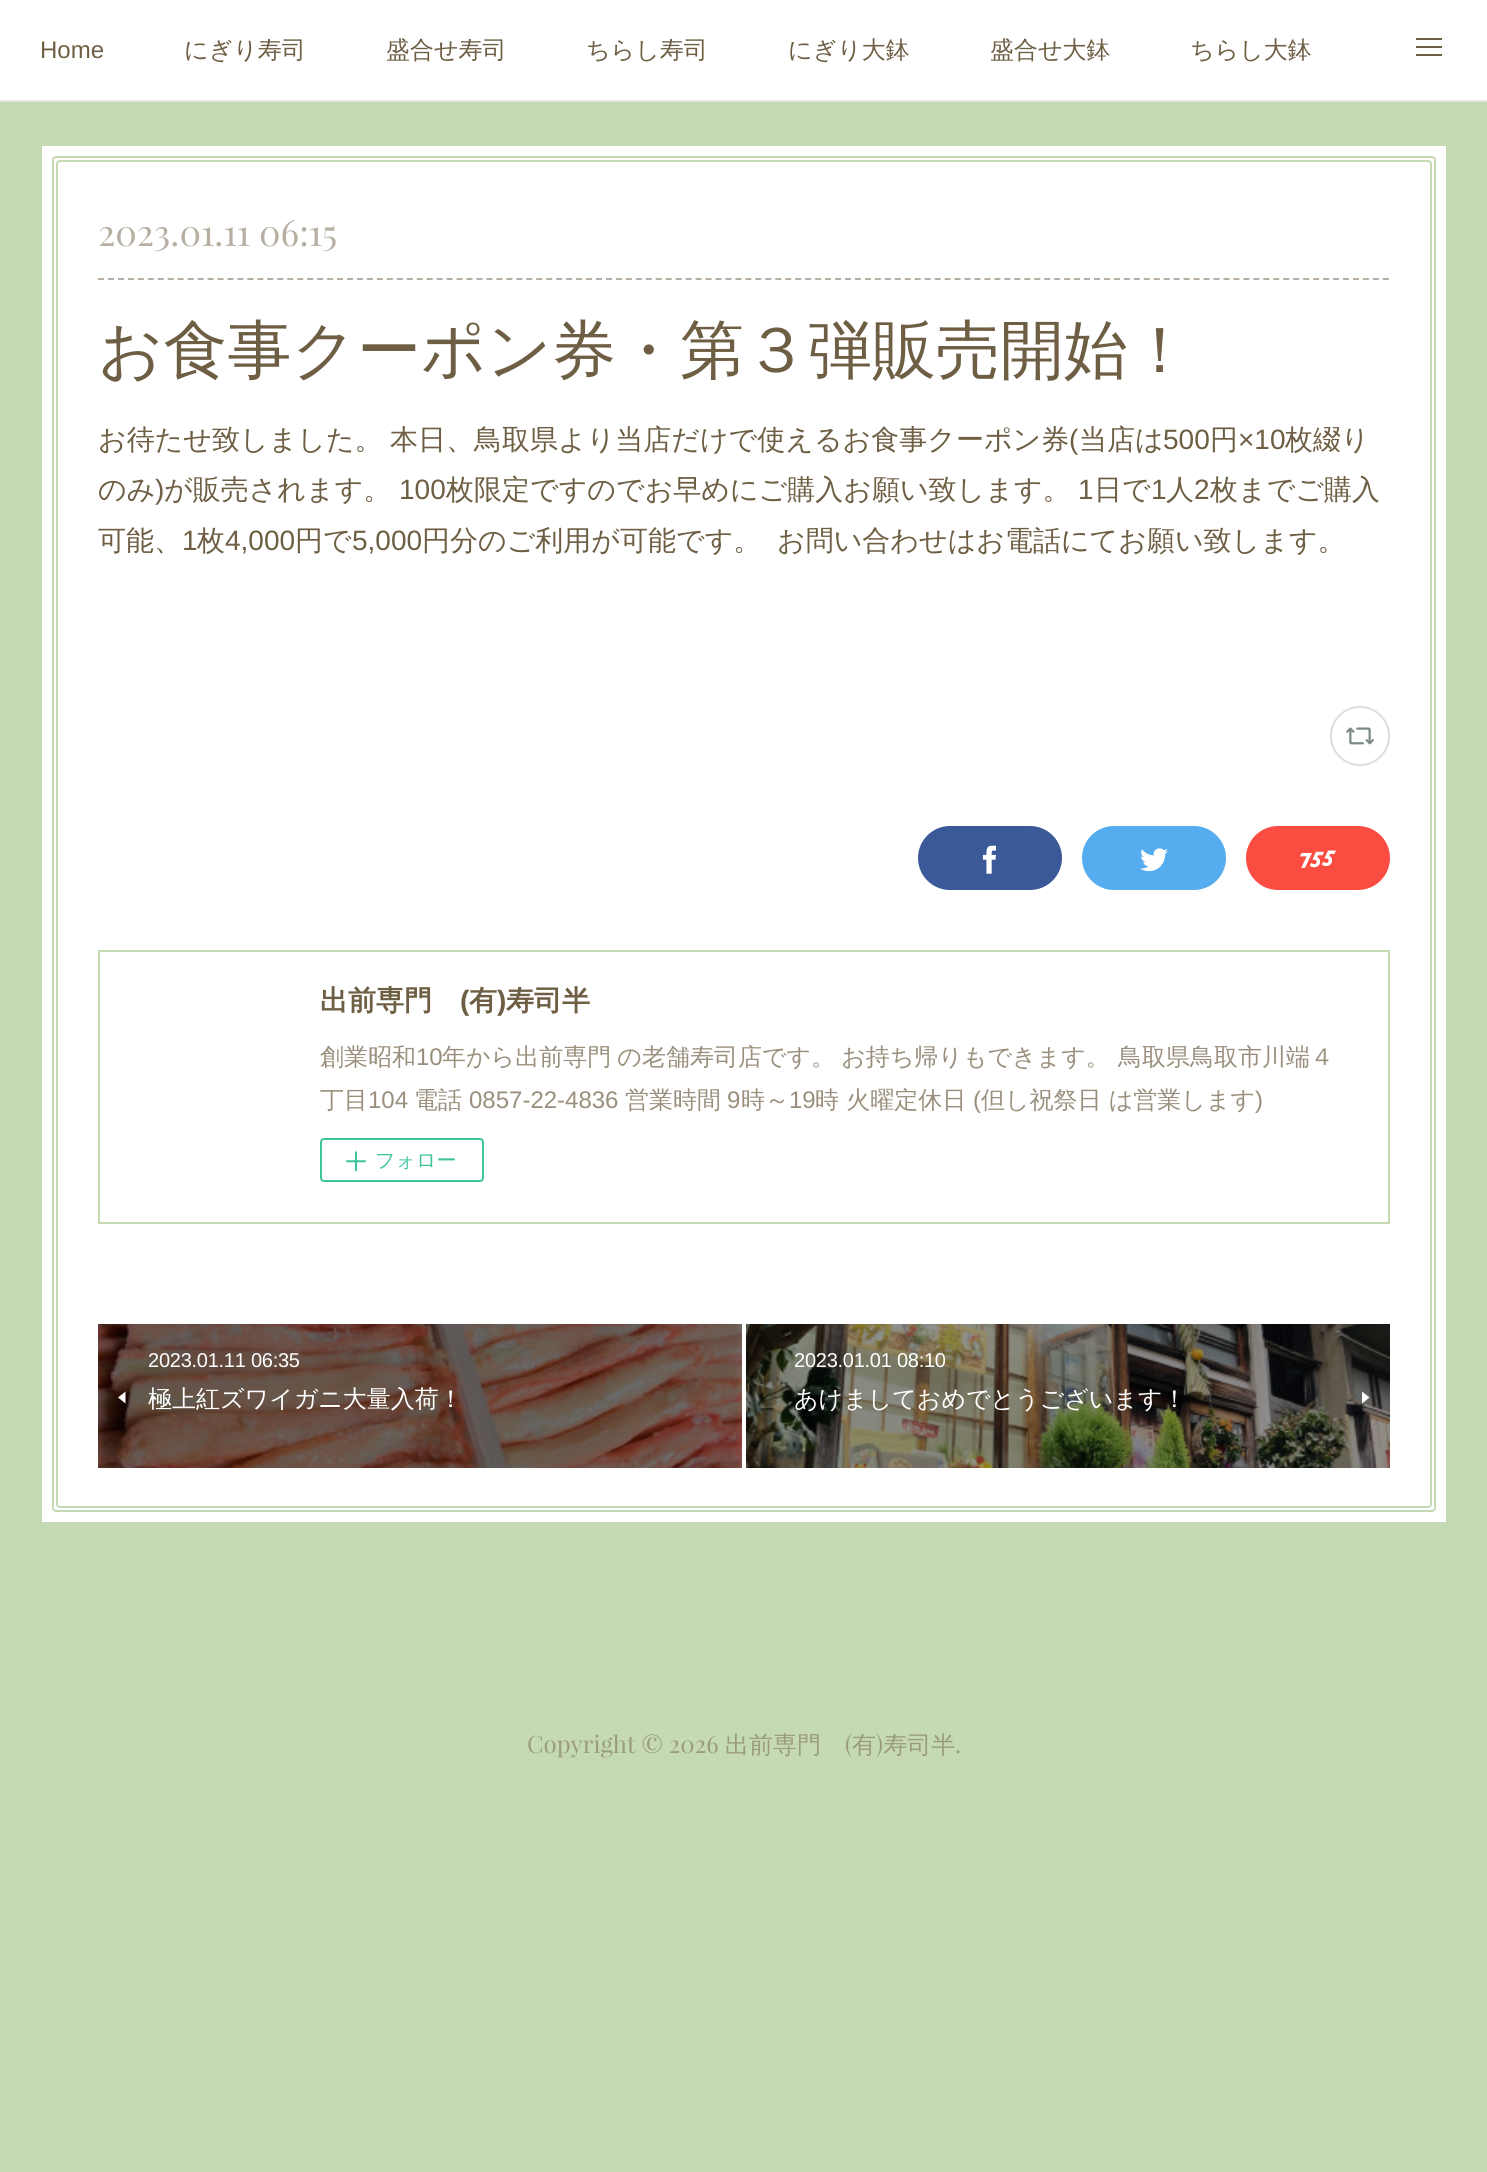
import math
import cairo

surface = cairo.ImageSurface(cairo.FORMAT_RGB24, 1487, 2172)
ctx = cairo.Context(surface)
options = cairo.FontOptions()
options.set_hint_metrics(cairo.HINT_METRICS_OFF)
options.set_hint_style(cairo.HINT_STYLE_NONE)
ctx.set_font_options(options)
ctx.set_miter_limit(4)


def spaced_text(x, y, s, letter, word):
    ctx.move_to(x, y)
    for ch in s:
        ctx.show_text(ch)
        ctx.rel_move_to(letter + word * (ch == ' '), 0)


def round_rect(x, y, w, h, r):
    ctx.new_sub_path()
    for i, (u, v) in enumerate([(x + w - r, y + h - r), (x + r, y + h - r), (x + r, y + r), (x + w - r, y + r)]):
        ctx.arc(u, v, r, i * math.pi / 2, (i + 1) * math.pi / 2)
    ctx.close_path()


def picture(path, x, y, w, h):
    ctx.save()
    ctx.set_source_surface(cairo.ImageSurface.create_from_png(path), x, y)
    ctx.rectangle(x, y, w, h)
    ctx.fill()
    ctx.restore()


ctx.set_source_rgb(0.773, 0.851, 0.706)
ctx.paint()
ctx.set_source_rgb(1, 1, 1)
ctx.rectangle(0, 0, 1487, 100)
ctx.fill()
ctx.set_source_rgb(0.902, 0.902, 0.902)
ctx.rectangle(0, 100, 1487, 2)
ctx.fill()
ctx.select_font_face("Liberation Sans")
ctx.set_font_size(24)
ctx.set_source_rgb(0.431, 0.373, 0.267)
ctx.move_to(40, 58)
ctx.show_text("Home")
ctx.select_font_face("WenQuanYi Zen Hei Medium")
ctx.move_to(184, 58)
ctx.show_text("にぎり寿司")
ctx.move_to(386, 58)
ctx.show_text("盛合せ寿司")
ctx.move_to(586, 58)
ctx.show_text("ちらし寿司")
ctx.move_to(788, 58)
ctx.show_text("にぎり大鉢")
ctx.move_to(990, 58)
ctx.show_text("盛合せ大鉢")
ctx.move_to(1190, 58)
ctx.show_text("ちらし大鉢")
ctx.rectangle(1416, 38, 26, 2)
ctx.fill()
ctx.rectangle(1416, 46, 26, 2)
ctx.fill()
ctx.rectangle(1416, 54, 26, 2)
ctx.fill()
ctx.set_source_rgb(1, 1, 1)
ctx.rectangle(42, 146, 1404, 1376)
ctx.fill()
round_rect(53, 157, 1382, 1354, 3)
ctx.set_source_rgb(0.773, 0.851, 0.706)
ctx.stroke()
round_rect(57, 161, 1374, 1346, 3)
ctx.stroke()
ctx.select_font_face("Playfair Display")
ctx.set_font_size(36)
ctx.set_source_rgb(0.718, 0.686, 0.635)
ctx.move_to(98, 246)
ctx.show_text("2023.01.11 06:15")
ctx.new_path()
ctx.move_to(98, 279)
ctx.line_to(1390, 279)
ctx.set_source_rgb(0.714, 0.682, 0.635)
ctx.set_dash([6, 3.96])
ctx.stroke()
ctx.select_font_face("WenQuanYi Zen Hei Medium")
ctx.set_font_size(64)
ctx.set_source_rgb(0.431, 0.373, 0.267)
ctx.move_to(98, 372)
ctx.show_text("お食事クーポン券・第３弾販売開始！")
ctx.set_font_size(28)
spaced_text(98, 449, "お待たせ致しました。 本日、鳥取県より当店だけで使えるお食事クーポン券", 0, -1)
ctx.select_font_face("Liberation Sans")
ctx.move_to(1069, 449)
ctx.show_text("(")
ctx.select_font_face("WenQuanYi Zen Hei Medium")
ctx.move_to(1079, 449)
ctx.show_text("当店は")
ctx.select_font_face("Liberation Sans")
ctx.move_to(1163, 449)
ctx.show_text("500")
ctx.select_font_face("WenQuanYi Zen Hei Medium")
ctx.move_to(1210, 449)
ctx.show_text("円")
ctx.select_font_face("Liberation Sans")
ctx.move_to(1238, 449)
ctx.show_text("×10")
ctx.select_font_face("WenQuanYi Zen Hei Medium")
ctx.move_to(1285, 449)
ctx.show_text("枚綴り")
ctx.move_to(98, 499)
ctx.show_text("のみ")
ctx.select_font_face("Liberation Sans")
ctx.move_to(155, 499)
ctx.show_text(")")
ctx.select_font_face("WenQuanYi Zen Hei Medium")
ctx.move_to(164, 499)
ctx.show_text("が販売されます。")
ctx.select_font_face("Liberation Sans")
ctx.move_to(399, 499)
ctx.show_text("100")
ctx.select_font_face("WenQuanYi Zen Hei Medium")
ctx.move_to(446, 499)
ctx.show_text("枚限定ですのでお早めにご購入お願い致します。")
ctx.select_font_face("Liberation Sans")
ctx.move_to(1078, 499)
ctx.show_text("1")
ctx.select_font_face("WenQuanYi Zen Hei Medium")
ctx.move_to(1094, 499)
ctx.show_text("日で")
ctx.select_font_face("Liberation Sans")
ctx.move_to(1151, 499)
ctx.show_text("1")
ctx.select_font_face("WenQuanYi Zen Hei Medium")
ctx.move_to(1166, 499)
ctx.show_text("人")
ctx.select_font_face("Liberation Sans")
ctx.move_to(1194, 499)
ctx.show_text("2")
ctx.select_font_face("WenQuanYi Zen Hei Medium")
ctx.move_to(1210, 499)
ctx.show_text("枚までご購入")
ctx.move_to(98, 550)
ctx.show_text("可能、")
ctx.select_font_face("Liberation Sans")
ctx.move_to(182, 550)
ctx.show_text("1")
ctx.select_font_face("WenQuanYi Zen Hei Medium")
ctx.move_to(197, 550)
ctx.show_text("枚")
ctx.select_font_face("Liberation Sans")
ctx.move_to(225, 550)
ctx.show_text("4,000")
ctx.select_font_face("WenQuanYi Zen Hei Medium")
ctx.move_to(295, 550)
ctx.show_text("円で")
ctx.select_font_face("Liberation Sans")
ctx.move_to(352, 550)
ctx.show_text("5,000")
ctx.select_font_face("WenQuanYi Zen Hei Medium")
ctx.move_to(422, 550)
ctx.show_text("円分のご利用が可能です。")
ctx.move_to(777, 550)
ctx.show_text("お問い合わせはお電話にてお願い致します。")
ctx.new_path()
ctx.arc(1360, 736, 29, 0, 2 * math.pi)
ctx.set_source_rgb(0.867, 0.867, 0.867)
ctx.set_dash([])
ctx.stroke()
picture("img1.png", 1346, 727, 28, 18)
ctx.set_source_rgb(0.231, 0.349, 0.596)
round_rect(918, 826, 144, 64, 32)
ctx.fill()
picture("img2.png", 982, 845, 14, 29)
ctx.set_source_rgb(0.333, 0.675, 0.933)
round_rect(1082, 826, 144, 64, 32)
ctx.fill()
picture("img3.png", 1140, 848, 28, 24)
ctx.set_source_rgb(0.984, 0.298, 0.259)
round_rect(1246, 826, 144, 64, 32)
ctx.fill()
picture("img4.png", 1300, 850, 36, 18)
ctx.rectangle(99, 951, 1290, 272)
ctx.set_source_rgb(0.773, 0.851, 0.706)
ctx.stroke()
ctx.select_font_face("WenQuanYi Zen Hei", cairo.FONT_SLANT_NORMAL, cairo.FONT_WEIGHT_BOLD)
ctx.set_source_rgb(0.431, 0.373, 0.267)
ctx.move_to(320, 1010)
ctx.show_text("出前専門")
ctx.select_font_face("Liberation Sans", cairo.FONT_SLANT_NORMAL, cairo.FONT_WEIGHT_BOLD)
ctx.move_to(460, 1010)
ctx.show_text("(")
ctx.select_font_face("WenQuanYi Zen Hei", cairo.FONT_SLANT_NORMAL, cairo.FONT_WEIGHT_BOLD)
ctx.move_to(469, 1010)
ctx.show_text("有")
ctx.select_font_face("Liberation Sans", cairo.FONT_SLANT_NORMAL, cairo.FONT_WEIGHT_BOLD)
ctx.move_to(497, 1010)
ctx.show_text(")")
ctx.select_font_face("WenQuanYi Zen Hei", cairo.FONT_SLANT_NORMAL, cairo.FONT_WEIGHT_BOLD)
ctx.move_to(506, 1010)
ctx.show_text("寿司半")
ctx.select_font_face("WenQuanYi Zen Hei Medium")
ctx.set_font_size(24)
ctx.set_source_rgb(0.604, 0.561, 0.486)
ctx.move_to(320, 1065)
ctx.show_text("創業昭和")
ctx.select_font_face("Liberation Sans")
ctx.move_to(416, 1065)
ctx.show_text("10")
ctx.select_font_face("WenQuanYi Zen Hei Medium")
spaced_text(442, 1065, "年から出前専門 の老舗寿司店です。 お持ち帰りもできます。", 0, -1)
ctx.move_to(1118, 1065)
ctx.show_text("鳥取県鳥取市川端４")
ctx.move_to(320, 1108)
ctx.show_text("丁目")
ctx.select_font_face("Liberation Sans")
ctx.move_to(368, 1108)
ctx.show_text("104")
ctx.select_font_face("WenQuanYi Zen Hei Medium")
ctx.move_to(414, 1108)
ctx.show_text("電話")
ctx.select_font_face("Liberation Sans")
ctx.move_to(469, 1108)
ctx.show_text("0857-22-4836")
ctx.select_font_face("WenQuanYi Zen Hei Medium")
ctx.move_to(625, 1108)
ctx.show_text("営業時間")
ctx.select_font_face("Liberation Sans")
ctx.move_to(727, 1108)
ctx.show_text("9")
ctx.select_font_face("WenQuanYi Zen Hei Medium")
ctx.move_to(741, 1108)
ctx.show_text("時～")
ctx.select_font_face("Liberation Sans")
ctx.move_to(789, 1108)
ctx.show_text("19")
ctx.select_font_face("WenQuanYi Zen Hei Medium")
ctx.move_to(815, 1108)
ctx.show_text("時 火曜定休日")
ctx.select_font_face("Liberation Sans")
ctx.move_to(973, 1108)
ctx.show_text("(")
ctx.select_font_face("WenQuanYi Zen Hei Medium")
ctx.move_to(981, 1108)
ctx.show_text("但し祝祭日 は営業します")
ctx.select_font_face("Liberation Sans")
ctx.move_to(1255, 1108)
ctx.show_text(")")
round_rect(321, 1139, 162, 42, 3)
ctx.set_source_rgb(0.239, 0.769, 0.616)
ctx.stroke()
picture("img5.png", 346, 1151, 20, 21)
ctx.select_font_face("WenQuanYi Zen Hei Medium")
ctx.set_font_size(20)
ctx.move_to(375, 1167)
ctx.show_text("フォロー")
picture("img6.png", 98, 1324, 644, 144)
ctx.select_font_face("Liberation Sans")
ctx.set_source_rgb(1, 1, 1)
spaced_text(148, 1367, "2023.01.11 06:35", -0.25, 0)
ctx.new_path()
ctx.move_to(125.5, 1403.5)
ctx.line_to(125.5, 1391.5)
ctx.line_to(118, 1397.5)
ctx.close_path()
ctx.fill()
ctx.select_font_face("WenQuanYi Zen Hei Medium")
ctx.set_font_size(24)
ctx.move_to(148, 1407)
ctx.show_text("極上紅ズワイガニ大量入荷！")
picture("img7.png", 746, 1324, 644, 144)
ctx.select_font_face("Liberation Sans")
ctx.set_font_size(20)
spaced_text(794, 1367, "2023.01.01 08:10", -0.25, 0)
ctx.select_font_face("WenQuanYi Zen Hei Medium")
ctx.set_font_size(24)
ctx.move_to(794, 1407)
ctx.show_text("あけましておめでとうございます！")
ctx.new_path()
ctx.move_to(1362, 1391.5)
ctx.line_to(1362, 1403.5)
ctx.line_to(1369.5, 1397.5)
ctx.close_path()
ctx.fill()
ctx.set_source_rgb(0.604, 0.612, 0.486)
ctx.move_to(725, 1753)
ctx.show_text("出前専門")
ctx.select_font_face("Playfair Display")
ctx.move_to(845, 1753)
ctx.show_text("(")
ctx.select_font_face("WenQuanYi Zen Hei Medium")
ctx.move_to(852, 1753)
ctx.show_text("有 寿司半")
ctx.select_font_face("Playfair Display")
ctx.move_to(527, 1753)
ctx.show_text("Copyright © 2026")
ctx.move_to(876, 1753)
ctx.show_text(")")
ctx.move_to(955, 1753)
ctx.show_text(".")
surface.write_to_png("page.png")
